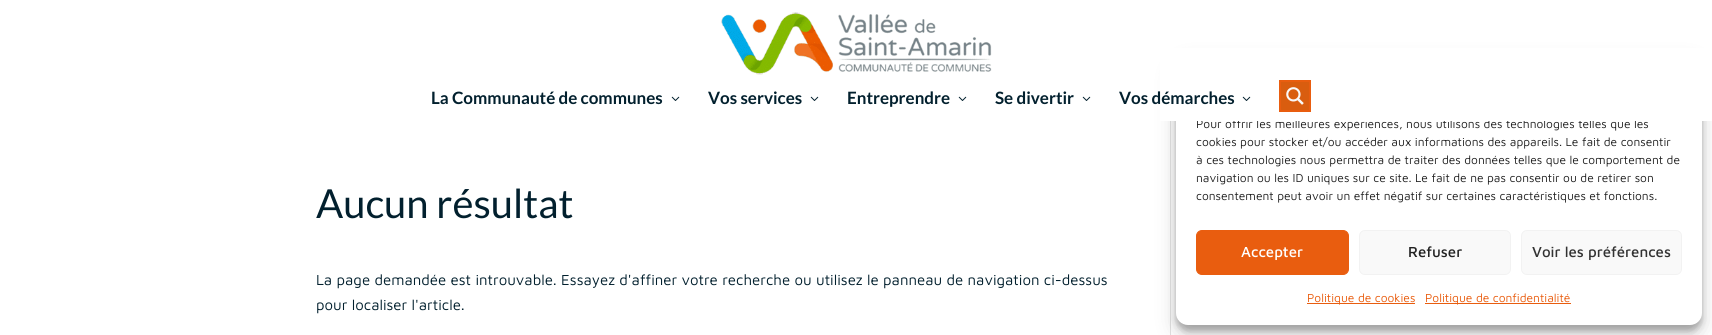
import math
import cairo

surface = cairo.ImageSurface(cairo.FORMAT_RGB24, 1712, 335)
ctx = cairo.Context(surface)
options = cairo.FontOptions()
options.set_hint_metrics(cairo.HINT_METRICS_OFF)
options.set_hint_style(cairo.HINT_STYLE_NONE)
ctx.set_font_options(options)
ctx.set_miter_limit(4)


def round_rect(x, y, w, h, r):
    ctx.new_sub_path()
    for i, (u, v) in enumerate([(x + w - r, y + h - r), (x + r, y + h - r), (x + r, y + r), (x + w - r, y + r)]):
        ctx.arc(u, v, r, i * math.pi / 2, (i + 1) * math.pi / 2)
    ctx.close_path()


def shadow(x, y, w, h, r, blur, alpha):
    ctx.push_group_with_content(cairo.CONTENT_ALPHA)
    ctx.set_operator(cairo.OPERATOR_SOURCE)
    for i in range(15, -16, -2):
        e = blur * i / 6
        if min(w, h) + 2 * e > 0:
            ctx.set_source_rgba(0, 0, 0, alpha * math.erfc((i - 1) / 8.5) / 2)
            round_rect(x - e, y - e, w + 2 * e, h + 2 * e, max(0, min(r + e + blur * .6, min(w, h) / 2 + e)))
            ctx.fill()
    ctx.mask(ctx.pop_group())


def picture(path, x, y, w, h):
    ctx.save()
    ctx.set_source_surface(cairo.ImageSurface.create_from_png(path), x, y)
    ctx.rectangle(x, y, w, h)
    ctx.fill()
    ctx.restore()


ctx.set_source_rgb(1, 1, 1)
ctx.paint()
ctx.set_source_rgb(0.886, 0.886, 0.886)
ctx.rectangle(1170, 121, 1, 214)
ctx.fill()
ctx.set_source_rgb(0, 0, 0)
shadow(1176, 60, 526, 271, 12, 3, 0.23)
shadow(1176, 64, 526, 271, 12, 10, 0.19)
ctx.set_source_rgb(1, 1, 1)
round_rect(1176, 54, 526, 271, 12)
ctx.fill()
ctx.select_font_face("Maven Pro")
ctx.set_font_size(12)
ctx.set_source_rgb(0.133, 0.133, 0.133)
ctx.move_to(1196, 128)
ctx.show_text("Pour offrir les meilleures expériences, nous utilisons des technologies telles que les")
ctx.set_source_rgb(1, 1, 1)
ctx.rectangle(1160, 48, 552, 73)
ctx.fill()
picture("img1.png", 721, 12, 271, 63)
ctx.select_font_face("Lato", cairo.FONT_SLANT_NORMAL, cairo.FONT_WEIGHT_BOLD)
ctx.set_font_size(17)
ctx.set_source_rgb(0.008, 0.125, 0.18)
ctx.move_to(431, 104)
ctx.show_text("La Communauté de communes")
picture("img2.png", 671, 96, 9, 5)
ctx.move_to(708, 104)
ctx.show_text("Vos services")
picture("img2.png", 810, 96, 9, 5)
ctx.move_to(847, 104)
ctx.show_text("Entreprendre")
picture("img2.png", 958, 96, 9, 5)
ctx.move_to(995, 104)
ctx.show_text("Se divertir")
picture("img2.png", 1082, 96, 9, 5)
ctx.move_to(1119, 104)
ctx.show_text("Vos démarches")
picture("img2.png", 1242, 96, 9, 5)
ctx.set_source_rgb(0.914, 0.365, 0.059)
ctx.rectangle(1279, 80, 32, 32)
ctx.fill()
ctx.set_source_rgb(0.851, 0.365, 0.059)
ctx.rectangle(1281, 82, 28, 28)
ctx.fill()
picture("img3.png", 1286, 87, 18, 18)
ctx.select_font_face("Lato")
ctx.set_font_size(40)
ctx.set_source_rgb(0.008, 0.125, 0.18)
ctx.move_to(316, 218)
ctx.show_text("Aucun résultat")
ctx.select_font_face("Maven Pro")
ctx.set_font_size(15)
ctx.move_to(316, 285)
ctx.show_text("La page demandée est introuvable. Essayez d'affiner votre recherche ou utilisez le panneau de navigation ci-dessus")
ctx.move_to(316, 310)
ctx.show_text("pour localiser l'article.")
ctx.set_font_size(12)
ctx.set_source_rgb(0.133, 0.133, 0.133)
ctx.move_to(1196, 146)
ctx.show_text("cookies pour stocker et/ou accéder aux informations des appareils. Le fait de consentir")
ctx.move_to(1196, 164)
ctx.show_text("à ces technologies nous permettra de traiter des données telles que le comportement de")
ctx.move_to(1196, 182)
ctx.show_text("navigation ou les ID uniques sur ce site. Le fait de ne pas consentir ou de retirer son")
ctx.move_to(1196, 200)
ctx.show_text("consentement peut avoir un effet négatif sur certaines caractéristiques et fonctions.")
ctx.set_source_rgb(0.914, 0.365, 0.059)
round_rect(1196.5, 230.5, 152, 44, 5.5)
ctx.fill_preserve()
ctx.set_line_width(1)
ctx.stroke()
ctx.select_font_face("Maven Pro Medium")
ctx.set_font_size(15)
ctx.set_source_rgb(1, 1, 1)
ctx.move_to(1241, 257)
ctx.show_text("Accepter")
ctx.set_source_rgb(0.976, 0.976, 0.976)
round_rect(1359.5, 230.5, 151, 44, 5.5)
ctx.fill_preserve()
ctx.set_source_rgb(0.949, 0.949, 0.949)
ctx.stroke()
ctx.set_source_rgb(0.133, 0.133, 0.133)
ctx.move_to(1408, 257)
ctx.show_text("Refuser")
ctx.set_source_rgb(0.976, 0.976, 0.976)
round_rect(1521.5, 230.5, 160, 44, 5.5)
ctx.fill_preserve()
ctx.set_source_rgb(0.949, 0.949, 0.949)
ctx.stroke()
ctx.set_source_rgb(0.2, 0.2, 0.2)
ctx.move_to(1532, 257)
ctx.show_text("Voir les préférences")
ctx.set_source_rgb(0.914, 0.365, 0.059)
ctx.rectangle(1307, 303, 108, 1)
ctx.fill()
ctx.select_font_face("Maven Pro")
ctx.set_font_size(12)
ctx.move_to(1307, 302)
ctx.show_text("Politique de cookies")
ctx.rectangle(1425, 303, 146, 1)
ctx.fill()
ctx.move_to(1425, 302)
ctx.show_text("Politique de confidentialité")
surface.write_to_png("page.png")
